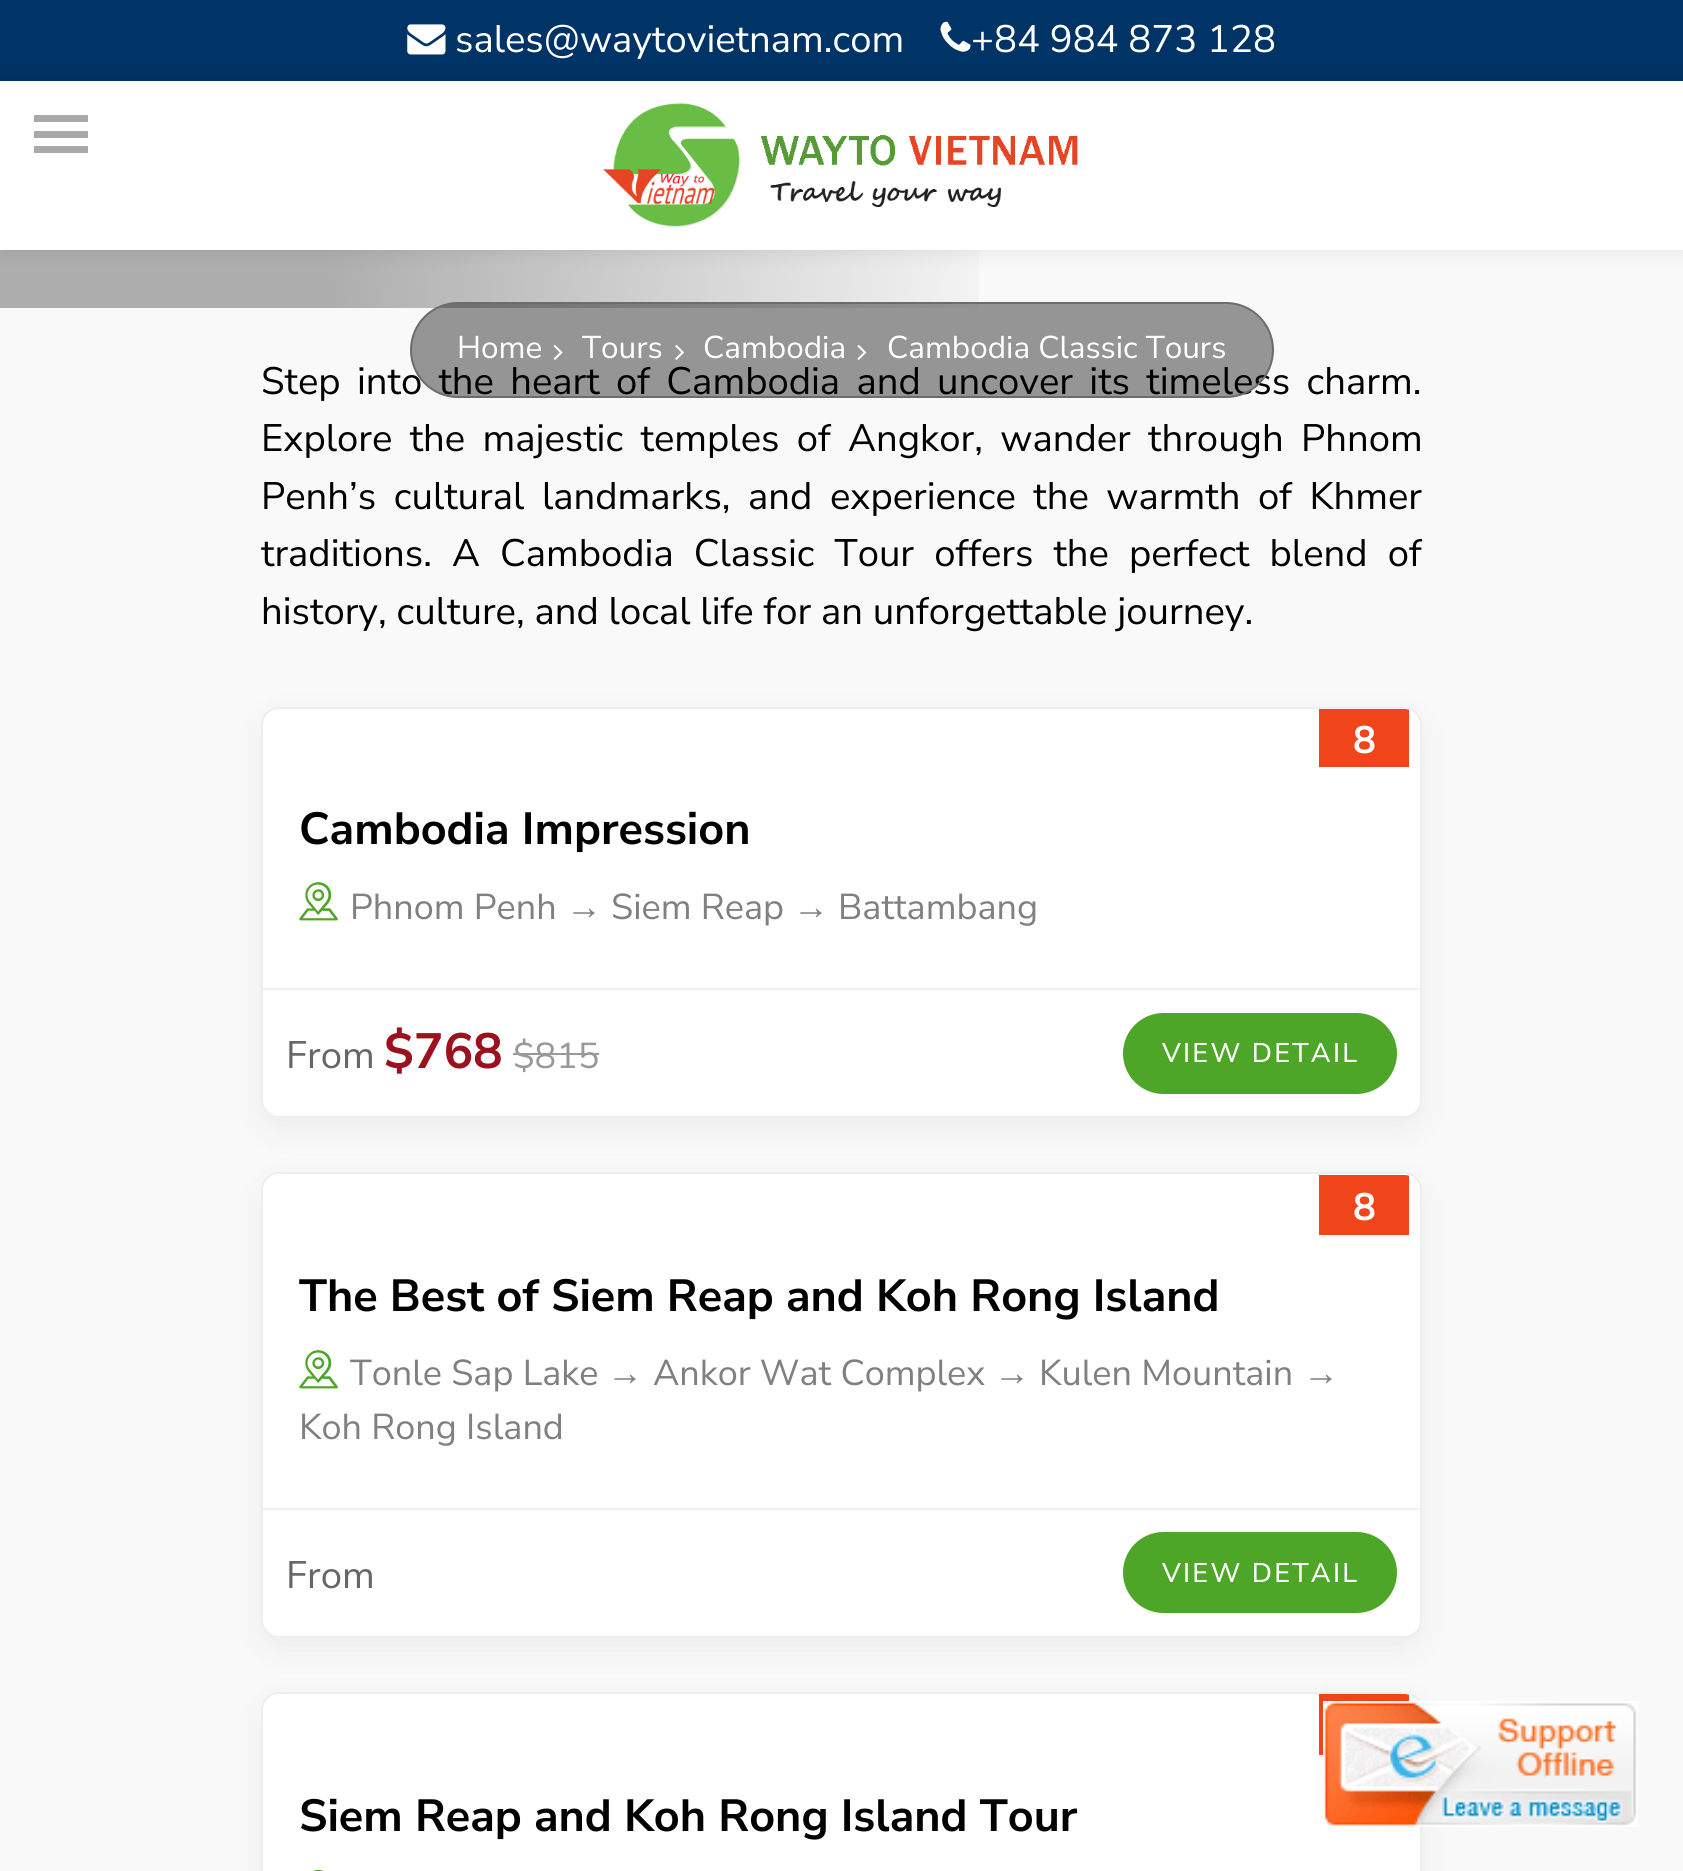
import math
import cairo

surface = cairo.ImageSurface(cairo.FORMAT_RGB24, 1683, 1871)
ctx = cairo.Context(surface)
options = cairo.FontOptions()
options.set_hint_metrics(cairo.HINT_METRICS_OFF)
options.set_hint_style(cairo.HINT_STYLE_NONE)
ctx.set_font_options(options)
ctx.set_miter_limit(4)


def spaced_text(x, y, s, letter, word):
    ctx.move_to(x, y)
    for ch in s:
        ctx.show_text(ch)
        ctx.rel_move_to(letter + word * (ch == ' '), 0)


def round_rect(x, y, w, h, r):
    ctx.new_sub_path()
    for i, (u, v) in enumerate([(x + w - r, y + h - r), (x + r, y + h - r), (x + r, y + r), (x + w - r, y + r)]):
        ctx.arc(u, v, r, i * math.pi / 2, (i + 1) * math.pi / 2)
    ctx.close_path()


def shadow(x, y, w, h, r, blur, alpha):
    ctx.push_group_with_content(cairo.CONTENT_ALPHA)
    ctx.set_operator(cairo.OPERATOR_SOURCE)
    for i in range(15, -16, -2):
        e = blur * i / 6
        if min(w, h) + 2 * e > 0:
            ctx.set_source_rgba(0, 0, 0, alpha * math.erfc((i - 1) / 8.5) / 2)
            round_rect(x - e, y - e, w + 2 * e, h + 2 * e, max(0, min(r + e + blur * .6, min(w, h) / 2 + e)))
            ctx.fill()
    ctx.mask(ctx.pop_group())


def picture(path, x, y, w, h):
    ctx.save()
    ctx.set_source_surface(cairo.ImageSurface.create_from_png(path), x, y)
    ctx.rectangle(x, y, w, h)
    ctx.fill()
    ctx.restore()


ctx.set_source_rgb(0.973, 0.973, 0.973)
ctx.paint()
ctx.set_source_rgb(0, 0.2, 0.4)
ctx.rectangle(0, 0, 1683, 81)
ctx.fill()
picture("img1.png", 407, 24, 39, 31)
ctx.select_font_face("Nunito Sans")
ctx.set_font_size(38.25)
ctx.set_source_rgb(1, 1, 1)
ctx.move_to(455, 52)
ctx.show_text("sales@waytovietnam.com")
picture("img2.png", 940, 21, 31, 31)
ctx.move_to(971, 52)
ctx.show_text("+84 984 873 128")
ctx.set_source_rgb(0, 0, 0)
shadow(0, 81, 1683, 169, 0, 11, 0.1)
ctx.set_source_rgb(1, 1, 1)
ctx.rectangle(0, 81, 1683, 169)
ctx.fill()
ctx.set_source_rgb(0.663, 0.663, 0.663)
ctx.rectangle(34, 115, 54, 7)
ctx.fill()
ctx.rectangle(34, 131, 54, 7)
ctx.fill()
ctx.rectangle(34, 146, 54, 7)
ctx.fill()
picture("img3.png", 602, 103, 476, 125)
gradient = cairo.LinearGradient(1681, 220, 2.1, 338)
gradient.add_color_stop_rgba(0.39, 0, 0, 0, 0)
gradient.add_color_stop_rgba(0.8, 0, 0, 0, 0.3)
ctx.set_source(gradient)
ctx.rectangle(0, 250, 979, 58)
ctx.fill()
ctx.set_source_rgb(0, 0, 0)
spaced_text(261, 394, "Step into the heart of Cambodia and uncover its timeless charm.", 0, 6.5)
ctx.set_source_rgba(0, 0, 0, 0.4)
round_rect(411, 303, 862, 94, 47)
ctx.fill_preserve()
ctx.set_source_rgb(0.424, 0.424, 0.424)
ctx.stroke()
ctx.set_font_size(31.5)
ctx.set_source_rgb(1, 1, 1)
ctx.move_to(457, 358)
ctx.show_text("Home")
picture("img4.png", 553, 345, 10, 15)
ctx.move_to(582, 358)
ctx.show_text("Tours")
picture("img5.png", 675, 345, 9, 15)
ctx.move_to(703, 358)
ctx.show_text("Cambodia")
picture("img6.png", 857, 345, 10, 15)
ctx.move_to(887, 358)
ctx.show_text("Cambodia Classic Tours")
ctx.set_font_size(38.25)
ctx.set_source_rgb(0, 0, 0)
spaced_text(261, 451, "Explore the majestic temples of Angkor, wander through Phnom", 0, 7.5)
spaced_text(261, 509, "Penh’s cultural landmarks, and experience the warmth of Khmer", 0, 7.75)
spaced_text(261, 566, "traditions. A Cambodia Classic Tour offers the perfect blend of", 0, 10.25)
ctx.move_to(261, 624)
ctx.show_text("history, culture, and local life for an unforgettable journey.")
ctx.set_source_rgb(0, 0, 0)
shadow(261, 718, 1161, 412, 18, 17, 0.05)
ctx.set_source_rgb(1, 1, 1)
round_rect(262, 708, 1159, 409, 17)
ctx.fill_preserve()
ctx.set_source_rgb(0.933, 0.933, 0.933)
ctx.stroke()
ctx.save()
round_rect(263, 709, 1157, 407, 16)
ctx.clip()
ctx.set_source_rgb(0.941, 0.271, 0.102)
ctx.rectangle(1319, 709, 90, 58)
ctx.fill()
ctx.restore()
ctx.select_font_face("Nunito Sans", cairo.FONT_SLANT_NORMAL, cairo.FONT_WEIGHT_BOLD)
ctx.set_source_rgb(1, 1, 1)
ctx.move_to(1353, 753)
ctx.show_text("8")
ctx.set_font_size(45)
ctx.set_source_rgb(0, 0, 0)
ctx.move_to(299, 844)
ctx.show_text("Cambodia Impression")
picture("img7.png", 299, 882, 39, 39)
ctx.select_font_face("Nunito Sans")
ctx.set_font_size(36)
ctx.set_source_rgb(0.502, 0.502, 0.502)
ctx.move_to(350, 919)
ctx.show_text("Phnom Penh")
ctx.select_font_face("Liberation Sans")
ctx.move_to(566, 919)
ctx.show_text("→")
ctx.select_font_face("Nunito Sans")
ctx.move_to(611, 919)
ctx.show_text("Siem Reap")
ctx.select_font_face("Liberation Sans")
ctx.move_to(793, 919)
ctx.show_text("→")
ctx.select_font_face("Nunito Sans")
ctx.move_to(838, 919)
ctx.show_text("Battambang")
ctx.set_source_rgb(0.941, 0.941, 0.941)
ctx.rectangle(263, 988, 1157, 2)
ctx.fill()
ctx.set_font_size(38.25)
ctx.set_source_rgb(0.4, 0.4, 0.4)
ctx.move_to(286, 1068)
ctx.show_text("From")
ctx.select_font_face("Nunito Sans", cairo.FONT_SLANT_NORMAL, cairo.FONT_WEIGHT_BOLD)
ctx.set_font_size(49.5)
ctx.set_source_rgb(0.608, 0.067, 0.118)
ctx.move_to(384, 1068)
ctx.show_text("$768")
ctx.select_font_face("Nunito Sans")
ctx.set_font_size(36)
ctx.set_source_rgb(0.6, 0.6, 0.6)
ctx.move_to(513, 1068)
ctx.show_text("$815")
ctx.rectangle(513, 1053, 86, 2)
ctx.fill()
ctx.set_source_rgb(0.302, 0.651, 0.153)
round_rect(1125.5, 1015.5, 269, 76, 38)
ctx.fill_preserve()
ctx.set_line_width(5)
ctx.stroke()
ctx.select_font_face("Nunito Sans Medium")
ctx.set_font_size(27)
ctx.set_source_rgb(1, 1, 1)
spaced_text(1162, 1062, "VIEW DETAIL", 2.25, 0)
ctx.set_source_rgb(0, 0, 0)
shadow(261, 1184, 1161, 465, 18, 17, 0.05)
ctx.set_source_rgb(1, 1, 1)
round_rect(262, 1173, 1159, 464, 17)
ctx.fill_preserve()
ctx.set_source_rgb(0.933, 0.933, 0.933)
ctx.set_line_width(2)
ctx.stroke()
ctx.save()
round_rect(263, 1175, 1157, 461, 16)
ctx.clip()
ctx.set_source_rgb(0.941, 0.271, 0.102)
ctx.rectangle(1319, 1175, 90, 60)
ctx.fill()
ctx.restore()
ctx.select_font_face("Nunito Sans", cairo.FONT_SLANT_NORMAL, cairo.FONT_WEIGHT_BOLD)
ctx.set_font_size(38.25)
ctx.set_source_rgb(1, 1, 1)
ctx.move_to(1353, 1220)
ctx.show_text("8")
ctx.set_font_size(45)
ctx.set_source_rgb(0, 0, 0)
ctx.move_to(299, 1311)
ctx.show_text("The Best of Siem Reap and Koh Rong Island")
picture("img7.png", 299, 1350, 39, 39)
ctx.select_font_face("Nunito Sans")
ctx.set_font_size(36)
ctx.set_source_rgb(0.502, 0.502, 0.502)
ctx.move_to(350, 1385)
ctx.show_text("Tonle Sap Lake")
ctx.select_font_face("Liberation Sans")
ctx.move_to(607, 1385)
ctx.show_text("→")
ctx.select_font_face("Nunito Sans")
ctx.move_to(653, 1385)
ctx.show_text("Ankor Wat Complex")
ctx.select_font_face("Liberation Sans")
ctx.move_to(994, 1385)
ctx.show_text("→")
ctx.select_font_face("Nunito Sans")
ctx.move_to(1039, 1385)
ctx.show_text("Kulen Mountain")
ctx.select_font_face("Liberation Sans")
ctx.move_to(1303, 1385)
ctx.show_text("→")
ctx.select_font_face("Nunito Sans")
ctx.move_to(299, 1439)
ctx.show_text("Koh Rong Island")
ctx.set_source_rgb(0.941, 0.941, 0.941)
ctx.rectangle(263, 1508, 1157, 2)
ctx.fill()
ctx.set_font_size(38.25)
ctx.set_source_rgb(0.4, 0.4, 0.4)
ctx.move_to(286, 1588)
ctx.show_text("From")
ctx.set_source_rgb(0.302, 0.651, 0.153)
round_rect(1125.5, 1534.5, 269, 76, 38)
ctx.fill_preserve()
ctx.set_line_width(5)
ctx.stroke()
ctx.select_font_face("Nunito Sans Medium")
ctx.set_font_size(27)
ctx.set_source_rgb(1, 1, 1)
spaced_text(1162, 1582, "VIEW DETAIL", 2.25, 0)
ctx.set_source_rgb(0, 0, 0)
shadow(261, 1703, 1161, 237, 18, 17, 0.05)
ctx.set_source_rgb(1, 1, 1)
round_rect(262, 1693, 1159, 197, 17)
ctx.fill_preserve()
ctx.set_source_rgb(0.933, 0.933, 0.933)
ctx.set_line_width(2)
ctx.stroke()
ctx.save()
round_rect(263, 1694, 1157, 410, 16)
ctx.clip()
ctx.set_source_rgb(0.941, 0.271, 0.102)
ctx.rectangle(1319, 1694, 90, 61)
ctx.fill()
ctx.restore()
ctx.select_font_face("Nunito Sans", cairo.FONT_SLANT_NORMAL, cairo.FONT_WEIGHT_BOLD)
ctx.set_font_size(45)
ctx.set_source_rgb(0, 0, 0)
ctx.move_to(299, 1831)
ctx.show_text("Siem Reap and Koh Rong Island Tour")
picture("img8.png", 313, 1869, 11, 2)
picture("img9.png", 1323, 1701, 315, 126)
surface.write_to_png("page.png")
